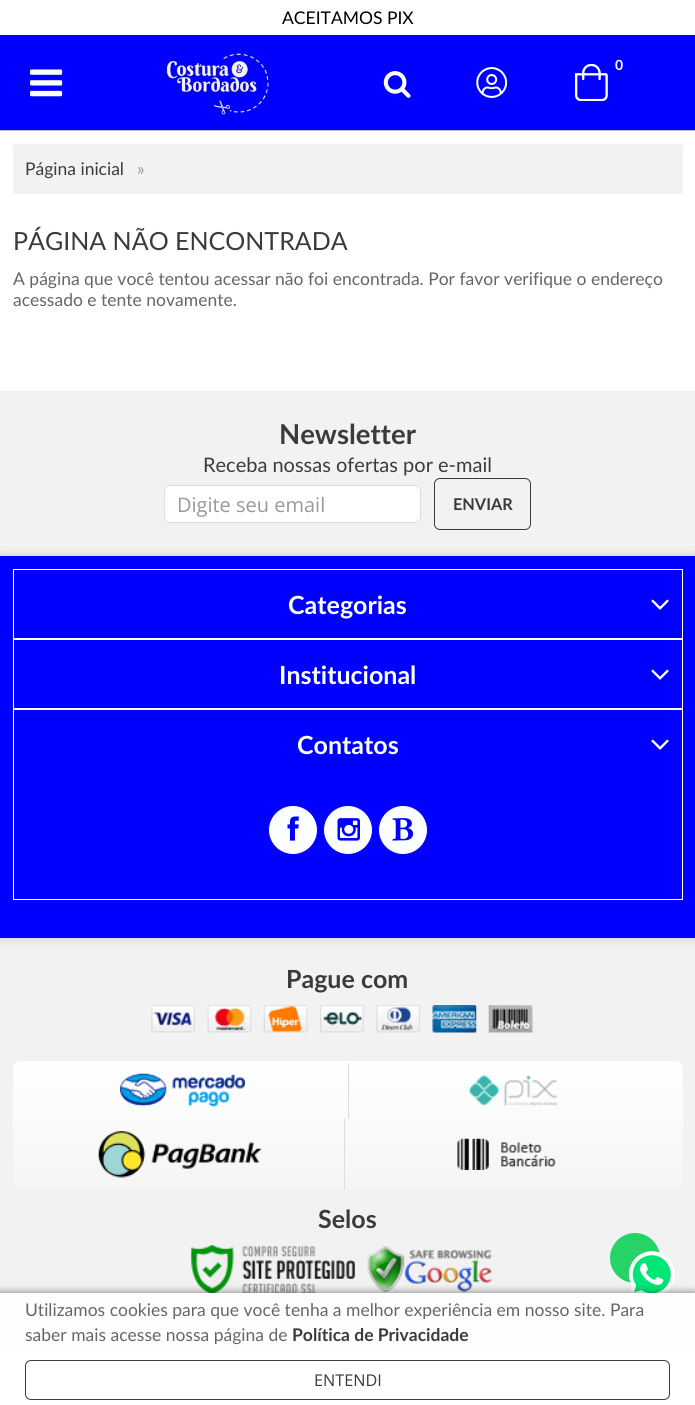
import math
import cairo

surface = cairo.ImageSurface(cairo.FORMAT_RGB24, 695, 1405)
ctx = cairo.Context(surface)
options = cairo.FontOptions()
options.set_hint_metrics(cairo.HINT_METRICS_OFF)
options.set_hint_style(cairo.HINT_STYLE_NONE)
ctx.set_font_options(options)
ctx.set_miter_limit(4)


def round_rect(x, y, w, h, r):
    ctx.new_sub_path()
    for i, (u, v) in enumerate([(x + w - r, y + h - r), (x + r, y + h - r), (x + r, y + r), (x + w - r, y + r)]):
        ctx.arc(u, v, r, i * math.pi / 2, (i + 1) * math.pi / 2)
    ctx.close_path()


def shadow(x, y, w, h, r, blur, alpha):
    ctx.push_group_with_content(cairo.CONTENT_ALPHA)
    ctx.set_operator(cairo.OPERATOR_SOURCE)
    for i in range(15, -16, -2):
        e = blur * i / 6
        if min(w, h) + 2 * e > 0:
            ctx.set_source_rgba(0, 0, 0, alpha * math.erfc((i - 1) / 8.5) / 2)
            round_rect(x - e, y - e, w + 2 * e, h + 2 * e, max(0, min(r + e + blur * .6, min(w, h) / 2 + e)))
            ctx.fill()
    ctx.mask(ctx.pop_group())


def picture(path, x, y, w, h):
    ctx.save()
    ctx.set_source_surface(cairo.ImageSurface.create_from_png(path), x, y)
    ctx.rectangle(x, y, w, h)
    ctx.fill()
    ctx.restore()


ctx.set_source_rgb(1, 1, 1)
ctx.paint()
ctx.select_font_face("Lato")
ctx.set_font_size(17.5)
ctx.set_source_rgb(0, 0, 0)
ctx.move_to(282, 24)
ctx.show_text("ACEITAMOS PIX")
ctx.set_source_rgb(0, 0, 1)
ctx.rectangle(0, 35, 695, 95)
ctx.fill()
ctx.set_source_rgb(0.722, 0.722, 0.722)
ctx.rectangle(0, 130, 695, 1)
ctx.fill()
picture("img1.png", 166, 53, 104, 64)
picture("img2.png", 575, 64, 33, 37)
ctx.set_source_rgb(0, 0, 1)
round_rect(605, 53, 28, 27, 13.5)
ctx.fill()
ctx.select_font_face("Lato", cairo.FONT_SLANT_NORMAL, cairo.FONT_WEIGHT_BOLD)
ctx.set_font_size(14)
ctx.set_source_rgb(0.988, 1, 1)
ctx.move_to(615, 70)
ctx.show_text("0")
picture("img3.png", 30, 69, 33, 28)
picture("img4.png", 383, 71, 28, 27)
picture("img5.png", 476, 67, 32, 31)
ctx.set_source_rgb(0.949, 0.949, 0.949)
round_rect(13, 144, 670, 50, 2.5)
ctx.fill()
ctx.select_font_face("Lato")
ctx.set_font_size(17.5)
ctx.set_source_rgb(0.231, 0.231, 0.231)
ctx.move_to(25, 175)
ctx.show_text("Página inicial")
ctx.set_source_rgb(0.6, 0.6, 0.6)
ctx.move_to(137, 175)
ctx.show_text("»")
ctx.set_font_size(25)
ctx.set_source_rgb(0.231, 0.231, 0.231)
ctx.move_to(13, 250)
ctx.show_text("PÁGINA NÃO ENCONTRADA")
ctx.set_font_size(17.5)
ctx.set_source_rgb(0.4, 0.4, 0.4)
ctx.move_to(13, 285)
ctx.show_text("A página que você tentou acessar não foi encontrada. Por favor verifique o endereço")
ctx.move_to(13, 306)
ctx.show_text("acessado e tente novamente.")
ctx.set_source_rgb(0.949, 0.949, 0.949)
ctx.rectangle(0, 391, 695, 165)
ctx.fill()
ctx.select_font_face("Lato", cairo.FONT_SLANT_NORMAL, cairo.FONT_WEIGHT_BOLD)
ctx.set_font_size(27.5)
ctx.set_source_rgb(0.231, 0.231, 0.231)
ctx.move_to(279, 444)
ctx.show_text("Newsletter")
ctx.select_font_face("Lato")
ctx.set_font_size(20)
ctx.move_to(203, 472)
ctx.show_text("Receba nossas ofertas por e-mail")
ctx.set_source_rgb(1, 1, 1)
round_rect(164.5, 485.5, 256, 37, 5.5)
ctx.fill_preserve()
ctx.set_source_rgb(0.867, 0.867, 0.867)
ctx.set_line_width(1)
ctx.stroke()
ctx.select_font_face("Open Sans")
ctx.set_source_rgb(0.6, 0.6, 0.6)
ctx.move_to(177, 512)
ctx.show_text("Digite seu email")
round_rect(434.5, 478.5, 96, 51, 5.5)
ctx.set_source_rgb(0.231, 0.231, 0.231)
ctx.stroke()
ctx.select_font_face("Lato", cairo.FONT_SLANT_NORMAL, cairo.FONT_WEIGHT_BOLD)
ctx.set_font_size(16.25)
ctx.move_to(453, 510)
ctx.show_text("ENVIAR")
ctx.set_source_rgb(0.949, 0.949, 0.949)
ctx.rectangle(0, 938, 695, 411)
ctx.fill()
ctx.set_source_rgb(0, 0, 0)
shadow(0, 556, 695, 382, 0, 5, 0.2)
ctx.set_source_rgb(0, 0, 1)
ctx.rectangle(0, 556, 695, 382)
ctx.fill()
ctx.rectangle(13.5, 569.5, 669, 69)
ctx.set_source_rgb(1, 1, 1)
ctx.stroke()
ctx.set_font_size(25)
ctx.set_source_rgb(0.988, 1, 1)
ctx.move_to(288, 614)
ctx.show_text("Categorias")
picture("img6.png", 651, 599, 18, 11)
ctx.rectangle(13.5, 639.5, 669, 69)
ctx.set_source_rgb(1, 1, 1)
ctx.stroke()
ctx.set_source_rgb(0.988, 1, 1)
ctx.move_to(279, 684)
ctx.show_text("Institucional")
picture("img6.png", 651, 669, 18, 11)
ctx.rectangle(13.5, 709.5, 669, 190)
ctx.set_source_rgb(1, 1, 1)
ctx.stroke()
ctx.set_source_rgb(0.988, 1, 1)
ctx.move_to(297, 754)
ctx.show_text("Contatos")
picture("img6.png", 651, 739, 18, 11)
ctx.arc(293, 830, 24.5, 0, 2 * math.pi)
ctx.fill_preserve()
ctx.set_source_rgb(0, 0, 1)
ctx.stroke()
picture("img7.png", 287, 816, 12, 25)
ctx.set_source_rgb(0.988, 1, 1)
ctx.arc(348, 830, 24.5, 0, 2 * math.pi)
ctx.fill_preserve()
ctx.set_source_rgb(0, 0, 1)
ctx.stroke()
picture("img8.png", 337, 818, 23, 23)
ctx.set_source_rgb(0.988, 1, 1)
ctx.arc(403, 830, 24.5, 0, 2 * math.pi)
ctx.fill_preserve()
ctx.set_source_rgb(0, 0, 1)
ctx.stroke()
picture("img9.png", 392, 818, 22, 23)
ctx.set_source_rgb(0.231, 0.231, 0.231)
ctx.move_to(286, 988)
ctx.show_text("Pague com")
picture("img10.png", 151, 1005, 44, 28)
picture("img11.png", 207, 1005, 45, 28)
picture("img12.png", 263, 1005, 45, 28)
picture("img13.png", 320, 1005, 44, 28)
picture("img14.png", 376, 1005, 44, 28)
picture("img15.png", 432, 1005, 45, 28)
picture("img16.png", 488, 1005, 45, 28)
gradient = cairo.LinearGradient(348, 1061, 348, 1190)
gradient.add_color_stop_rgba(0, 1, 1, 1, 1)
gradient.add_color_stop_rgba(1, 0.961, 0.961, 0.961, 1)
ctx.set_source(gradient)
round_rect(13, 1061, 670, 129, 8)
ctx.fill()
picture("img17.png", 120, 1073, 125, 34)
ctx.set_source_rgb(0.867, 0.867, 0.867)
ctx.rectangle(348, 1063, 1, 56)
ctx.fill()
picture("img18.png", 468, 1075, 90, 31)
ctx.rectangle(344, 1119, 1, 71)
ctx.fill()
picture("img19.png", 98, 1131, 164, 47)
picture("img20.png", 457, 1138, 99, 32)
ctx.set_source_rgb(0.231, 0.231, 0.231)
ctx.move_to(318, 1228)
ctx.show_text("Selos")
picture("img21.png", 191, 1245, 164, 50)
picture("img22.png", 367, 1246, 126, 47)
ctx.set_source_rgb(0.867, 0.867, 0.867)
ctx.rectangle(0, 1349, 695, 1)
ctx.fill()
ctx.set_source_rgb(0.145, 0.827, 0.4)
ctx.arc(635, 1258, 25, 0, 2 * math.pi)
ctx.fill()
picture("img23.png", 629, 1251, 46, 46)
ctx.save()
ctx.rectangle(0, 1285, 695, 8)
ctx.clip()
ctx.set_source_rgb(0, 0, 0)
shadow(0, 1293, 695, 112, 0, 4.5, 0.5)
ctx.restore()
ctx.set_source_rgba(1, 1, 1, 0.95)
ctx.rectangle(0, 1293, 695, 57)
ctx.fill()
ctx.select_font_face("Lato")
ctx.set_font_size(17.5)
ctx.set_source_rgb(0.4, 0.4, 0.4)
ctx.move_to(25, 1316)
ctx.show_text("Utilizamos cookies para que você tenha a melhor experiência em nosso site. Para")
ctx.move_to(25, 1341)
ctx.show_text("saber mais acesse nossa página de")
ctx.select_font_face("Lato", cairo.FONT_SLANT_NORMAL, cairo.FONT_WEIGHT_BOLD)
ctx.set_source_rgb(0.231, 0.231, 0.231)
ctx.move_to(292, 1341)
ctx.show_text("Política de Privacidade")
round_rect(25.5, 1360.5, 644, 39, 5.5)
ctx.stroke()
ctx.select_font_face("Open Sans")
ctx.set_font_size(16.25)
ctx.move_to(314, 1386)
ctx.show_text("ENTENDI")
surface.write_to_png("page.png")
